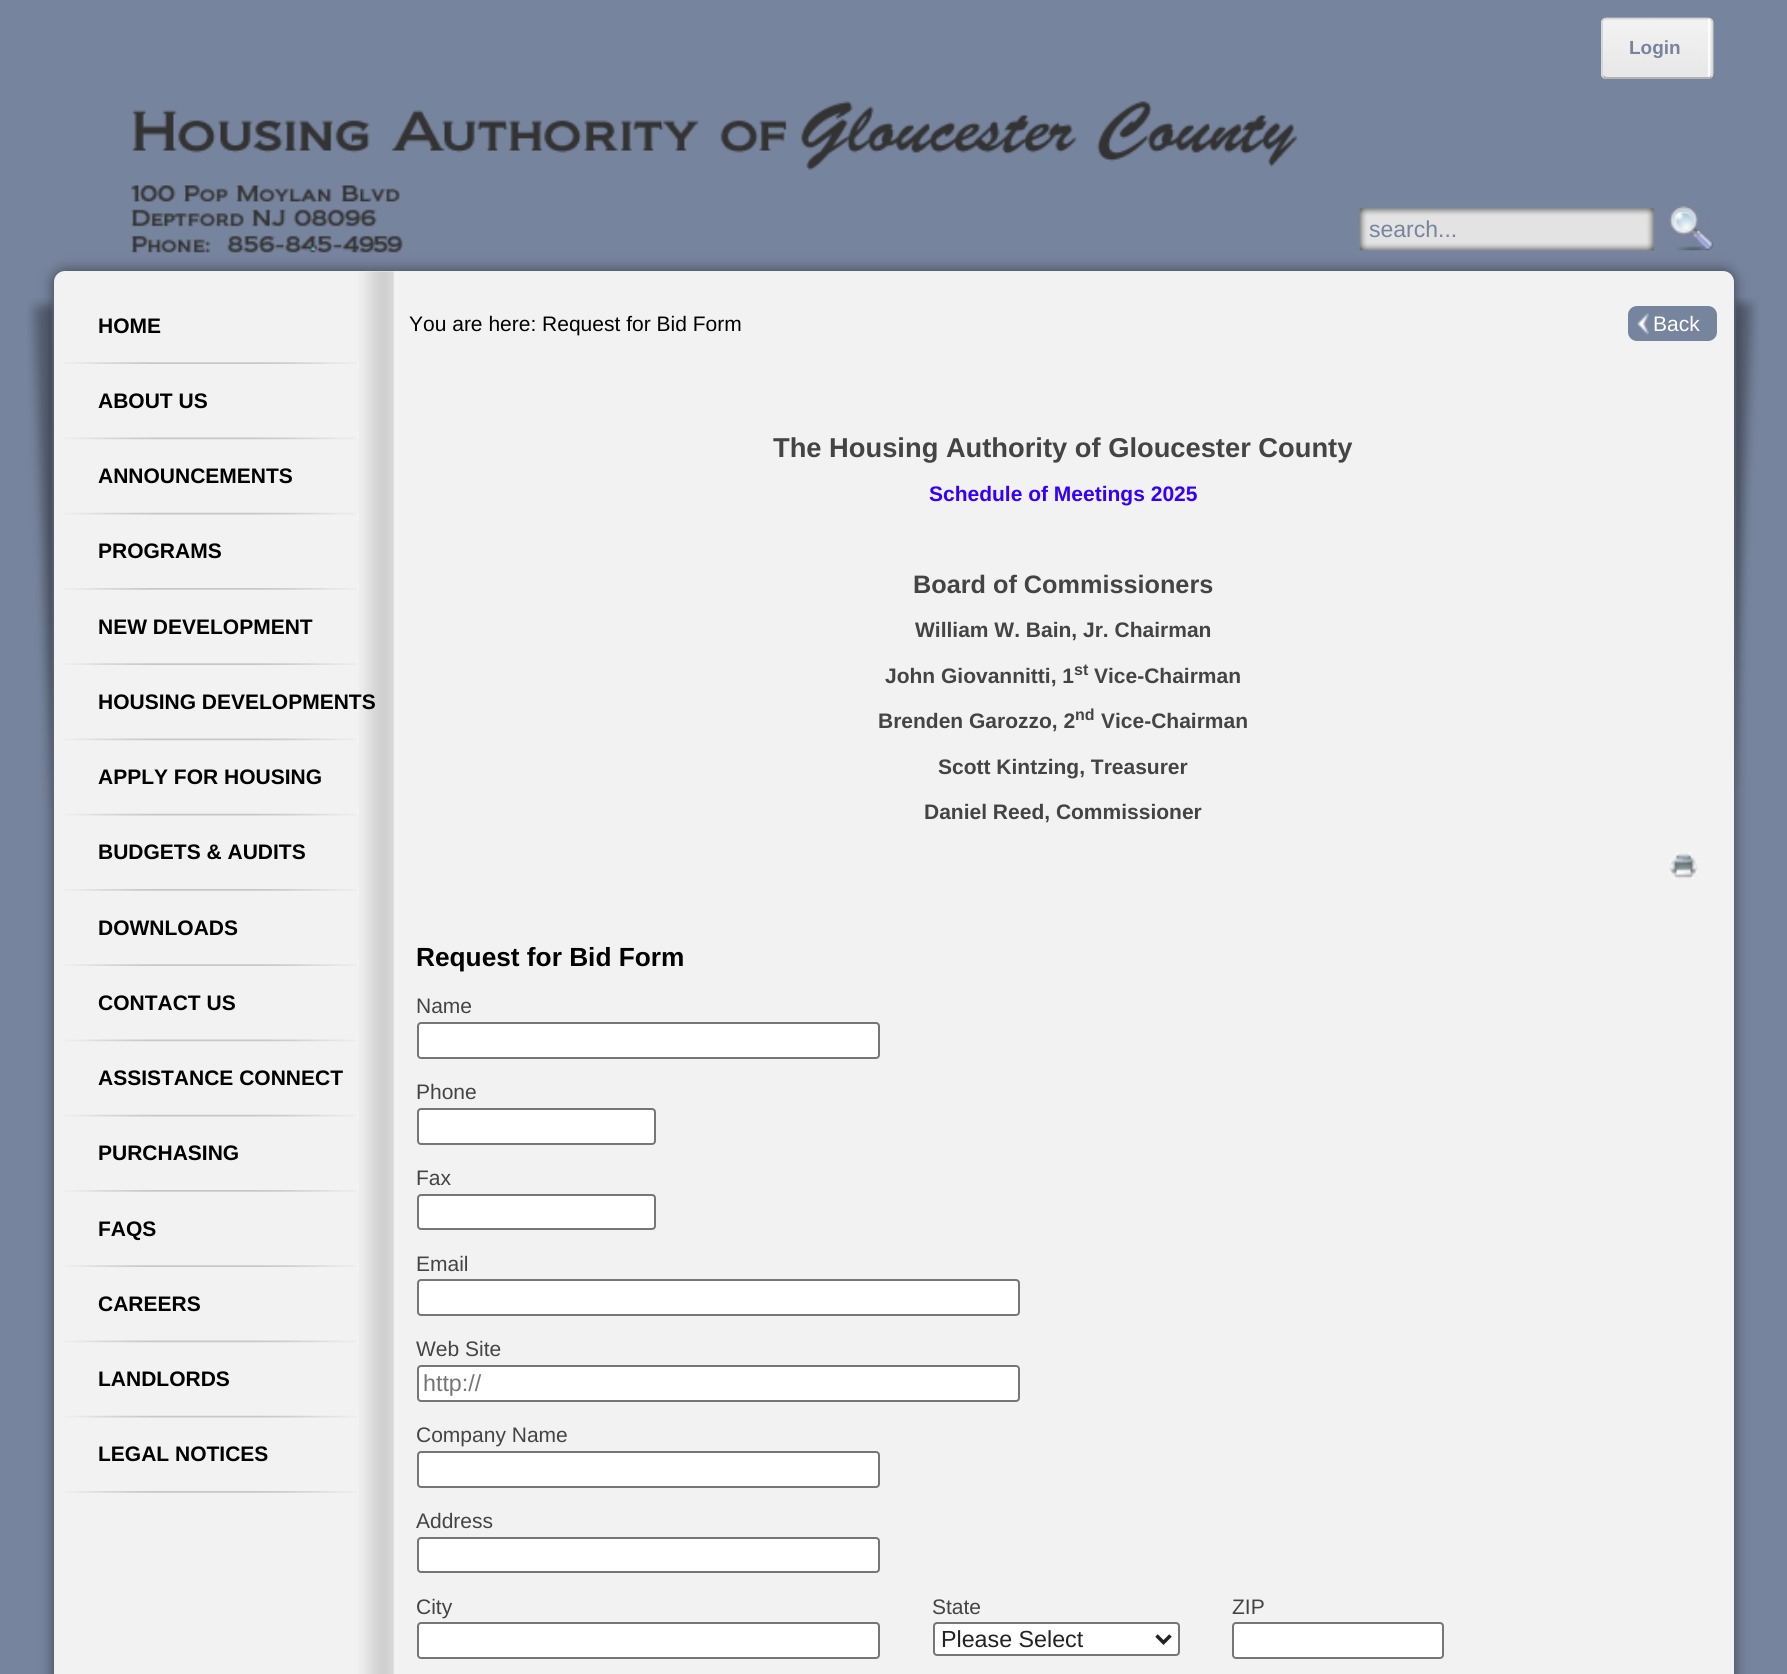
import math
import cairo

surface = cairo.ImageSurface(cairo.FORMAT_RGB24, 1787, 1674)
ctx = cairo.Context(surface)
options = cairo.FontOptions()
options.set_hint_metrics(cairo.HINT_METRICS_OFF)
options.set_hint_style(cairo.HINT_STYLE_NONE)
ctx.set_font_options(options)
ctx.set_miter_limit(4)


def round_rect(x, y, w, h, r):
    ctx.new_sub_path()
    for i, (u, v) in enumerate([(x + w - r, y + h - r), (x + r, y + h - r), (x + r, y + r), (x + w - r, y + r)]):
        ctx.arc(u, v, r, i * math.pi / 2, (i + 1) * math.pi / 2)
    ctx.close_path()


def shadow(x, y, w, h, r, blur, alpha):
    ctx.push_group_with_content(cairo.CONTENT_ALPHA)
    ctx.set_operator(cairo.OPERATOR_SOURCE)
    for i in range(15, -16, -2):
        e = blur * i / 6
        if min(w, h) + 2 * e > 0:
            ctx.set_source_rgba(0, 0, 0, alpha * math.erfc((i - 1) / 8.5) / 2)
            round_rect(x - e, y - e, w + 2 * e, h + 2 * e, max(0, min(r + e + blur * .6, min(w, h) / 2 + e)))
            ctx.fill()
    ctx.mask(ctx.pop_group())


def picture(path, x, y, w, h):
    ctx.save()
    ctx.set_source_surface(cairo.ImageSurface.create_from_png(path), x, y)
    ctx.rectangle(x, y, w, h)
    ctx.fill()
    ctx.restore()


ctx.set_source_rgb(0.467, 0.518, 0.616)
ctx.paint()
ctx.set_source_rgb(0.906, 0.906, 0.906)
round_rect(1601, 18, 112, 61, 5)
ctx.fill()
picture("img1.png", 1601, 19, 113, 58)
ctx.new_path()
ctx.move_to(1711, 76.5)
ctx.line_to(1708.5, 78)
ctx.line_to(1606, 78)
ctx.line_to(1603.5, 76.5)
ctx.set_source_rgb(0.667, 0.667, 0.667)
ctx.set_line_width(1.8)
ctx.stroke()
ctx.new_path()
ctx.move_to(1603.5, 76.5)
ctx.curve_to(1602.5, 76, 1602, 74.5, 1602, 73.5)
ctx.line_to(1602, 23)
ctx.curve_to(1602, 21.5, 1602.5, 20.5, 1603.5, 19.5)
ctx.curve_to(1604, 19, 1605.5, 18.5, 1606.5, 18.5)
ctx.line_to(1708, 18.5)
ctx.curve_to(1709, 18.5, 1710.5, 19, 1711, 19.5)
ctx.curve_to(1712, 20.5, 1712.5, 21.5, 1712.5, 23)
ctx.line_to(1712.5, 73.5)
ctx.curve_to(1712.5, 74.5, 1712, 76, 1711, 76.5)
ctx.set_source_rgb(0.835, 0.835, 0.835)
ctx.stroke()
ctx.set_source_rgb(0.988, 0.988, 0.988)
ctx.rectangle(1708, 19, 2, 58)
ctx.fill()
ctx.select_font_face("Liberation Sans", cairo.FONT_SLANT_NORMAL, cairo.FONT_WEIGHT_BOLD)
ctx.set_font_size(19)
ctx.set_source_rgb(0.467, 0.518, 0.616)
ctx.move_to(1629, 54)
ctx.show_text("Login")
picture("img2.png", 131, 101, 1167, 152)
picture("img4.png", 27, 298, 27, 510)
picture("img5.png", 1734, 297, 25, 492)
ctx.set_source_rgb(0, 0, 0)
shadow(54, 271, 1680, 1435, 11, 7, 0.5)
picture("img3.png", 1359, 206, 355, 45)
ctx.select_font_face("Liberation Sans")
ctx.set_font_size(23)
ctx.set_source_rgb(0.467, 0.518, 0.616)
ctx.move_to(1369, 237)
ctx.show_text("search...")
ctx.set_source_rgb(0.949, 0.949, 0.949)
round_rect(54, 271, 1680, 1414, 11)
ctx.fill()
picture("img6.png", 359, 271, 35, 1403)
picture("img7.png", 64, 362, 293, 2)
ctx.select_font_face("Liberation Sans", cairo.FONT_SLANT_NORMAL, cairo.FONT_WEIGHT_BOLD)
ctx.set_font_size(21)
ctx.set_source_rgb(0, 0, 0)
ctx.move_to(98, 333)
ctx.show_text("HOME")
picture("img8.png", 64, 437, 293, 3)
ctx.move_to(98, 408)
ctx.show_text("ABOUT US")
picture("img9.png", 64, 512, 293, 3)
ctx.move_to(98, 483)
ctx.show_text("ANNOUNCEMENTS")
picture("img10.png", 64, 588, 293, 2)
ctx.move_to(98, 558)
ctx.show_text("PROGRAMS")
picture("img7.png", 64, 663, 293, 2)
ctx.move_to(98, 634)
ctx.show_text("NEW DEVELOPMENT")
picture("img8.png", 64, 738, 293, 3)
ctx.move_to(98, 709)
ctx.show_text("HOUSING DEVELOPMENTS")
picture("img9.png", 64, 813, 293, 3)
ctx.move_to(98, 784)
ctx.show_text("APPLY FOR HOUSING")
picture("img10.png", 64, 889, 293, 2)
ctx.move_to(98, 859)
ctx.show_text("BUDGETS & AUDITS")
picture("img7.png", 64, 964, 293, 2)
ctx.move_to(98, 935)
ctx.show_text("DOWNLOADS")
picture("img8.png", 64, 1039, 293, 3)
ctx.move_to(98, 1010)
ctx.show_text("CONTACT US")
picture("img9.png", 64, 1114, 293, 3)
ctx.move_to(98, 1085)
ctx.show_text("ASSISTANCE CONNECT")
picture("img10.png", 64, 1190, 293, 2)
ctx.move_to(98, 1160)
ctx.show_text("PURCHASING")
picture("img7.png", 64, 1265, 293, 2)
ctx.move_to(98, 1236)
ctx.show_text("FAQS")
picture("img8.png", 64, 1340, 293, 3)
ctx.move_to(98, 1311)
ctx.show_text("CAREERS")
picture("img9.png", 64, 1415, 293, 3)
ctx.move_to(98, 1386)
ctx.show_text("LANDLORDS")
picture("img10.png", 64, 1491, 293, 2)
ctx.move_to(98, 1461)
ctx.show_text("LEGAL NOTICES")
ctx.select_font_face("Liberation Sans")
ctx.move_to(409, 331)
ctx.show_text("You are here: Request for Bid Form")
ctx.set_source_rgb(0.467, 0.518, 0.616)
round_rect(1628, 306, 89, 35, 9)
ctx.fill()
picture("img11.png", 1637, 313, 12, 22)
ctx.set_source_rgb(1, 1, 1)
ctx.move_to(1653, 331)
ctx.show_text("Back")
ctx.select_font_face("Liberation Sans", cairo.FONT_SLANT_NORMAL, cairo.FONT_WEIGHT_BOLD)
ctx.set_font_size(27.3)
ctx.set_source_rgb(0.267, 0.267, 0.267)
ctx.move_to(773, 457)
ctx.show_text("The Housing Authority of Gloucester County")
ctx.set_font_size(21)
ctx.set_source_rgb(0.2, 0, 1)
ctx.move_to(929, 501)
ctx.show_text("Schedule of Meetings 2025")
ctx.set_font_size(25.25)
ctx.set_source_rgb(0.267, 0.267, 0.267)
ctx.move_to(913, 593)
ctx.show_text("Board of Commissioners")
ctx.set_font_size(21)
ctx.move_to(915, 637)
ctx.show_text("William W. Bain, Jr. Chairman")
ctx.move_to(885, 683)
ctx.show_text("John Giovannitti, 1")
ctx.set_font_size(16)
ctx.move_to(1074, 675)
ctx.show_text("st")
ctx.set_font_size(21)
ctx.move_to(1094, 683)
ctx.show_text("Vice-Chairman")
ctx.move_to(878, 728)
ctx.show_text("Brenden Garozzo, 2")
ctx.set_font_size(16)
ctx.move_to(1075, 720)
ctx.show_text("nd")
ctx.set_font_size(21)
ctx.move_to(1101, 728)
ctx.show_text("Vice-Chairman")
ctx.move_to(938, 774)
ctx.show_text("Scott Kintzing, Treasurer")
ctx.move_to(924, 819)
ctx.show_text("Daniel Reed, Commissioner")
picture("img12.png", 1669, 852, 29, 27)
ctx.set_font_size(26.25)
ctx.set_source_rgb(0, 0, 0)
ctx.move_to(416, 966)
ctx.show_text("Request for Bid Form")
ctx.select_font_face("Liberation Sans")
ctx.set_font_size(21)
ctx.set_source_rgb(0.267, 0.267, 0.267)
ctx.move_to(416, 1013)
ctx.show_text("Name")
ctx.set_source_rgb(1, 1, 1)
round_rect(418, 1023, 461, 35, 3)
ctx.fill_preserve()
ctx.set_source_rgb(0.463, 0.463, 0.463)
ctx.set_line_width(2)
ctx.stroke()
ctx.set_source_rgb(0.267, 0.267, 0.267)
ctx.move_to(416, 1099)
ctx.show_text("Phone")
ctx.set_source_rgb(1, 1, 1)
round_rect(418, 1109, 237, 35, 3)
ctx.fill_preserve()
ctx.set_source_rgb(0.463, 0.463, 0.463)
ctx.stroke()
ctx.set_source_rgb(0.267, 0.267, 0.267)
ctx.move_to(416, 1185)
ctx.show_text("Fax")
ctx.set_source_rgb(1, 1, 1)
round_rect(418, 1195, 237, 34, 3)
ctx.fill_preserve()
ctx.set_source_rgb(0.463, 0.463, 0.463)
ctx.stroke()
ctx.set_source_rgb(0.267, 0.267, 0.267)
ctx.move_to(416, 1271)
ctx.show_text("Email")
ctx.set_source_rgb(1, 1, 1)
round_rect(418, 1280, 601, 35, 3)
ctx.fill_preserve()
ctx.set_source_rgb(0.463, 0.463, 0.463)
ctx.stroke()
ctx.set_source_rgb(0.267, 0.267, 0.267)
ctx.move_to(416, 1356)
ctx.show_text("Web Site")
ctx.set_source_rgb(1, 1, 1)
round_rect(418, 1366, 601, 35, 3)
ctx.fill_preserve()
ctx.set_source_rgb(0.463, 0.463, 0.463)
ctx.stroke()
ctx.set_font_size(23.25)
ctx.set_source_rgb(0.459, 0.459, 0.459)
ctx.move_to(423, 1391)
ctx.show_text("http://")
ctx.set_font_size(21)
ctx.set_source_rgb(0.267, 0.267, 0.267)
ctx.move_to(416, 1442)
ctx.show_text("Company Name")
ctx.set_source_rgb(1, 1, 1)
round_rect(418, 1452, 461, 35, 3)
ctx.fill_preserve()
ctx.set_source_rgb(0.463, 0.463, 0.463)
ctx.stroke()
ctx.set_source_rgb(0.267, 0.267, 0.267)
ctx.move_to(416, 1528)
ctx.show_text("Address")
ctx.set_source_rgb(1, 1, 1)
round_rect(418, 1538, 461, 34, 3)
ctx.fill_preserve()
ctx.set_source_rgb(0.463, 0.463, 0.463)
ctx.stroke()
ctx.set_source_rgb(0.267, 0.267, 0.267)
ctx.move_to(416, 1614)
ctx.show_text("City")
ctx.set_source_rgb(1, 1, 1)
round_rect(418, 1623, 461, 35, 3)
ctx.fill_preserve()
ctx.set_source_rgb(0.463, 0.463, 0.463)
ctx.stroke()
ctx.set_source_rgb(0.267, 0.267, 0.267)
ctx.move_to(932, 1614)
ctx.show_text("State")
ctx.set_source_rgb(1, 1, 1)
round_rect(934, 1623, 245, 32, 3)
ctx.fill_preserve()
ctx.set_source_rgb(0.463, 0.463, 0.463)
ctx.stroke()
ctx.new_path()
ctx.move_to(1156.5, 1635.5)
ctx.line_to(1163.5, 1642.5)
ctx.line_to(1170.5, 1635.5)
ctx.set_source_rgb(0.133, 0.133, 0.133)
ctx.set_line_width(3.5)
ctx.stroke()
ctx.set_font_size(23.25)
ctx.move_to(941, 1647)
ctx.show_text("Please Select")
ctx.set_font_size(21)
ctx.set_source_rgb(0.267, 0.267, 0.267)
ctx.move_to(1232, 1614)
ctx.show_text("ZIP")
ctx.set_source_rgb(1, 1, 1)
round_rect(1233, 1623, 210, 35, 3)
ctx.fill_preserve()
ctx.set_source_rgb(0.463, 0.463, 0.463)
ctx.set_line_width(2)
ctx.stroke()
surface.write_to_png("page.png")
